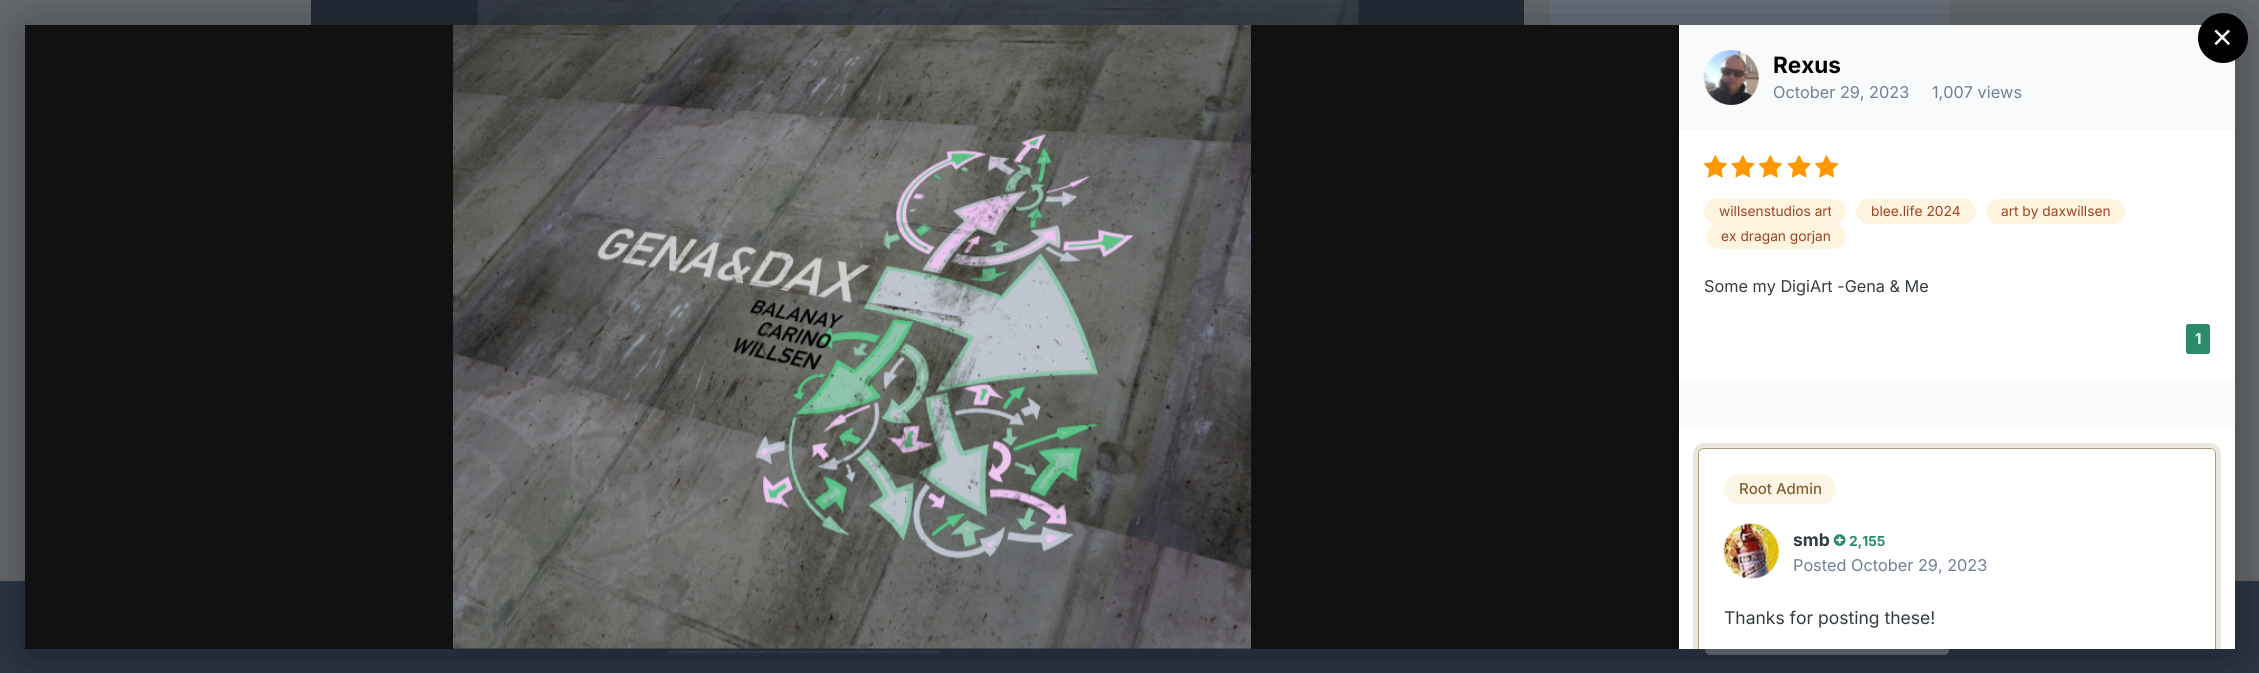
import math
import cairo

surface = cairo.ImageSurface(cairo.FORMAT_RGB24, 2259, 673)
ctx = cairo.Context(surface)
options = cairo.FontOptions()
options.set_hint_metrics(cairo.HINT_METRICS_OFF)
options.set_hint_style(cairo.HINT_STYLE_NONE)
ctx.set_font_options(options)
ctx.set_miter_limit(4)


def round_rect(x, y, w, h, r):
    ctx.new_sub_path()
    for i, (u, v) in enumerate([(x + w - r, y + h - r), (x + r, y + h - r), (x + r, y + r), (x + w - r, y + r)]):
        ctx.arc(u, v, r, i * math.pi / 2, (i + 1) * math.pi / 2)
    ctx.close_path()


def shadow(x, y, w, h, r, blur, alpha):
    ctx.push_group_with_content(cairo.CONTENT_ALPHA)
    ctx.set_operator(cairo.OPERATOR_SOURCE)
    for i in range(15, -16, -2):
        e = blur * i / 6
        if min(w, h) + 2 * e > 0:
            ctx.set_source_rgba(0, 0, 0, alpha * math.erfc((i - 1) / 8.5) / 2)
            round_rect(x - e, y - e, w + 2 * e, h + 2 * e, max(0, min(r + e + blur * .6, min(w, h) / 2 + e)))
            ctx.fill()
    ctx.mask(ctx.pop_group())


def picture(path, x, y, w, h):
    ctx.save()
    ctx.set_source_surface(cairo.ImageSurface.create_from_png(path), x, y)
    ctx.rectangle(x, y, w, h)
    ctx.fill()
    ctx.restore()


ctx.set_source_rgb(0.408, 0.427, 0.443)
ctx.paint()
ctx.set_source_rgb(0.145, 0.173, 0.22)
ctx.rectangle(311, 0, 1213, 25)
ctx.fill()
picture("img1.png", 477, 0, 882, 25)
ctx.set_source_rgb(0.424, 0.451, 0.498)
ctx.rectangle(1549, 0, 400, 25)
ctx.fill()
ctx.set_source_rgb(0.176, 0.216, 0.282)
ctx.rectangle(0, 581, 2259, 92)
ctx.fill()
ctx.new_path()
ctx.move_to(667.5, 652)
ctx.line_to(941, 652)
ctx.set_source_rgb(0.38, 0.408, 0.455)
ctx.set_line_width(1.2)
ctx.set_dash([1.25, 1.25])
ctx.stroke()
ctx.set_source_rgb(0.424, 0.451, 0.498)
round_rect(1705, 600, 244, 55, 5)
ctx.fill()
round_rect(1705.5, 600.5, 243, 54, 4.5)
ctx.set_source_rgba(0.141, 0.239, 0.341, 0.07)
ctx.set_line_width(1)
ctx.set_dash([])
ctx.stroke()
ctx.set_source_rgb(0, 0, 0)
shadow(25, 31, 2210, 624, 0, 34.5, 0.4)
ctx.set_source_rgb(0.969, 0.98, 0.988)
ctx.rectangle(1679, 25, 556, 105)
ctx.fill()
ctx.set_source_rgb(0, 0, 0)
ctx.arc(2223, 38, 25, 0, 2 * math.pi)
ctx.fill()
ctx.select_font_face("Liberation Sans")
ctx.set_font_size(35)
ctx.set_source_rgb(1, 1, 1)
ctx.move_to(2212, 49)
ctx.show_text("×")
ctx.set_source_rgb(0.067, 0.067, 0.067)
ctx.rectangle(25, 25, 1654, 624)
ctx.fill()
ctx.set_source_rgb(0.133, 0.133, 0.133)
ctx.rectangle(453, 648, 798, 1)
ctx.fill()
picture("img2.png", 453, 25, 798, 624)
ctx.set_source_rgb(1, 1, 1)
ctx.rectangle(1679, 130, 556, 519)
ctx.fill()
ctx.arc(1731.5, 77.5, 27.5, 0, 2 * math.pi)
ctx.fill()
picture("img3.png", 1703, 50, 56, 55)
ctx.select_font_face("Inter", cairo.FONT_SLANT_NORMAL, cairo.FONT_WEIGHT_BOLD)
ctx.set_font_size(22.5)
ctx.set_source_rgb(0, 0, 0)
ctx.move_to(1773, 73)
ctx.show_text("Rexus")
ctx.select_font_face("Inter")
ctx.set_font_size(16.25)
ctx.set_source_rgb(0.443, 0.502, 0.588)
ctx.move_to(1773, 98)
ctx.show_text("October 29, 2023")
ctx.move_to(1932, 98)
ctx.show_text("1,007 views")
picture("img4.png", 1703, 155, 24, 23)
picture("img5.png", 1731, 155, 24, 23)
picture("img4.png", 1758, 155, 24, 23)
picture("img6.png", 1787, 155, 24, 23)
picture("img7.png", 1815, 155, 24, 23)
ctx.set_source_rgb(1, 0.957, 0.875)
round_rect(1704, 199, 142, 25, 12.5)
ctx.fill()
ctx.save()
ctx.rectangle(1719, 199, 112, 25)
ctx.clip()
ctx.set_font_size(13.75)
ctx.set_source_rgb(0.612, 0.259, 0.129)
ctx.move_to(1719, 216)
ctx.show_text("willsenstudios art")
ctx.restore()
round_rect(1856, 199, 120, 25, 12.5)
ctx.fill()
ctx.set_font_size(13.75)
ctx.set_source_rgb(0.612, 0.259, 0.129)
ctx.move_to(1871, 216)
ctx.show_text("blee.life 2024")
ctx.set_source_rgb(1, 0.957, 0.875)
round_rect(1986, 199, 139, 25, 12.5)
ctx.fill()
ctx.set_source_rgb(0.612, 0.259, 0.129)
ctx.move_to(2001, 216)
ctx.show_text("art by daxwillsen")
ctx.set_source_rgb(1, 0.957, 0.875)
round_rect(1706, 224, 140, 25, 12.5)
ctx.fill()
ctx.set_source_rgb(0.612, 0.259, 0.129)
ctx.move_to(1721, 241)
ctx.show_text("ex dragan gorjan")
ctx.set_font_size(16.25)
ctx.set_source_rgb(0.208, 0.235, 0.255)
ctx.move_to(1704, 292)
ctx.show_text("Some my DigiArt -Gena & Me")
ctx.set_source_rgb(0.173, 0.549, 0.412)
round_rect(2186, 324, 24, 30, 2.5)
ctx.fill()
ctx.select_font_face("Inter", cairo.FONT_SLANT_NORMAL, cairo.FONT_WEIGHT_BOLD)
ctx.set_font_size(15)
ctx.set_source_rgb(0.941, 0.98, 0.965)
ctx.move_to(2195, 344)
ctx.show_text("1")
ctx.set_source_rgb(0.969, 0.98, 0.988)
ctx.rectangle(1679, 379, 556, 50)
ctx.fill()
ctx.save()
ctx.rectangle(1679, 25, 556, 624)
ctx.clip()
round_rect(1696, 446, 522, 215, 8)
ctx.set_source_rgb(0.925, 0.906, 0.878)
ctx.set_line_width(6)
ctx.stroke()
round_rect(1698.5, 448.5, 517, 210, 5.5)
ctx.set_source_rgba(0.506, 0.384, 0.18, 0.6)
ctx.set_line_width(1)
ctx.stroke()
ctx.restore()
ctx.set_source_rgb(1, 1, 1)
ctx.new_path()
ctx.move_to(1704, 449)
ctx.line_to(2210, 449)
ctx.curve_to(2213, 449, 2215, 451, 2215, 454)
ctx.line_to(2215, 649)
ctx.line_to(1699, 649)
ctx.line_to(1699, 454)
ctx.curve_to(1699, 451, 1701, 449, 1704, 449)
ctx.close_path()
ctx.fill()
ctx.set_source_rgb(0.992, 0.961, 0.906)
round_rect(1724, 474, 112, 30, 15)
ctx.fill()
ctx.select_font_face("Inter Medium")
ctx.set_source_rgb(0.506, 0.384, 0.18)
ctx.move_to(1739, 494)
ctx.show_text("Root Admin")
picture("img8.png", 1723, 523, 56, 56)
ctx.select_font_face("Inter", cairo.FONT_SLANT_NORMAL, cairo.FONT_WEIGHT_BOLD)
ctx.set_font_size(17.5)
ctx.set_source_rgb(0.208, 0.235, 0.255)
ctx.move_to(1793, 546)
ctx.show_text("smb")
picture("img9.png", 1833, 534, 13, 12)
ctx.set_font_size(13.75)
ctx.set_source_rgb(0.173, 0.549, 0.412)
ctx.move_to(1849, 546)
ctx.show_text("2,155")
ctx.select_font_face("Inter")
ctx.set_font_size(16.25)
ctx.set_source_rgb(0.443, 0.502, 0.588)
ctx.move_to(1793, 571)
ctx.show_text("Posted October 29, 2023")
ctx.set_font_size(17.5)
ctx.set_source_rgb(0.208, 0.235, 0.255)
ctx.move_to(1724, 624)
ctx.show_text("Thanks for posting these!")
surface.write_to_png("page.png")
